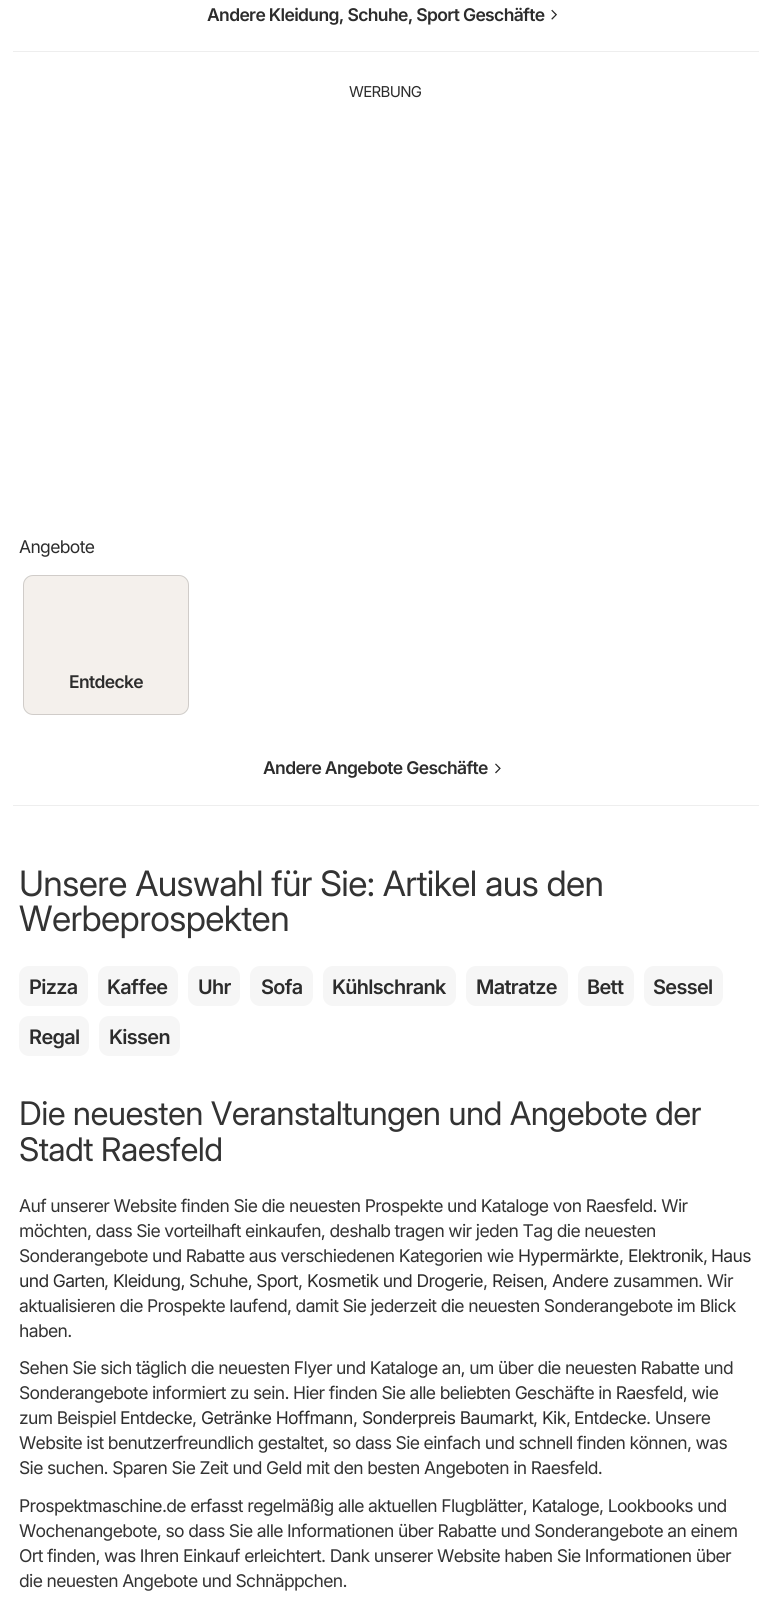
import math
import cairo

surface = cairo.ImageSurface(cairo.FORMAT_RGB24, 771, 1614)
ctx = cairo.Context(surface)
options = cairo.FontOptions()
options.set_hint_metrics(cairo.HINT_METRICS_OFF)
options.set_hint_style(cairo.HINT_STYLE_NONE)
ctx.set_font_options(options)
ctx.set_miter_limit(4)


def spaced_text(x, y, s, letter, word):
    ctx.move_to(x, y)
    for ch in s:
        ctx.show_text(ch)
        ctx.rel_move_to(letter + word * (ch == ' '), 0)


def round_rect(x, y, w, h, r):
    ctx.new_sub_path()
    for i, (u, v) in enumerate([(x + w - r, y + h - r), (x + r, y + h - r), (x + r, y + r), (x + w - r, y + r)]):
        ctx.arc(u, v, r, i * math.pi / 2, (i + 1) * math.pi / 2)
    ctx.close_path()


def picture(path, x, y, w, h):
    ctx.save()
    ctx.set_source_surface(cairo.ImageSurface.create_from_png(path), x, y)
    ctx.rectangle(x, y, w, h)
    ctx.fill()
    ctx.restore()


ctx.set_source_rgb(1, 1, 1)
ctx.paint()
ctx.select_font_face("Inter SemiBold")
ctx.set_font_size(17.5)
ctx.set_source_rgb(0.173, 0.173, 0.173)
spaced_text(207, 21, "Andere Kleidung, Schuhe, Sport Geschäfte", -0.65, 0)
picture("img1.png", 551, 9, 6, 11)
ctx.set_source_rgb(0.933, 0.933, 0.933)
ctx.rectangle(13, 51, 746, 1)
ctx.fill()
ctx.select_font_face("Inter")
ctx.set_font_size(15)
ctx.set_source_rgb(0.173, 0.173, 0.173)
spaced_text(349, 97, "WERBUNG", -0.65, 0)
ctx.set_font_size(17.5)
spaced_text(19, 553, "Angebote", -0.65, 0)
ctx.set_source_rgb(0.957, 0.941, 0.922)
round_rect(23, 575, 166, 140, 10)
ctx.fill()
round_rect(23.5, 575.5, 165, 139, 9.5)
ctx.set_source_rgba(0, 0, 0, 0.15)
ctx.set_line_width(1)
ctx.stroke()
ctx.select_font_face("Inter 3 SemiBold")
ctx.set_source_rgb(0.173, 0.173, 0.173)
spaced_text(69, 688, "Entdecke", -0.65, 0)
ctx.select_font_face("Inter SemiBold")
spaced_text(263, 774, "Andere Angebote Geschäfte", -0.65, 0)
picture("img2.png", 495, 763, 6, 11)
ctx.set_source_rgb(0.933, 0.933, 0.933)
ctx.rectangle(13, 805, 746, 1)
ctx.fill()
ctx.select_font_face("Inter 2")
ctx.set_font_size(35)
ctx.set_source_rgb(0.2, 0.2, 0.2)
spaced_text(19, 896, "Unsere Auswahl für Sie: Artikel aus den", -0.6, 0)
spaced_text(19, 931, "Werbeprospekten", -0.6, 0)
ctx.set_source_rgb(0.961, 0.961, 0.961)
round_rect(19, 966, 69, 40, 10)
ctx.fill()
ctx.select_font_face("Inter 2 SemiBold")
ctx.set_font_size(20)
ctx.set_source_rgb(0.173, 0.173, 0.173)
spaced_text(29, 994, "Pizza", -0.65, 0)
ctx.set_source_rgb(0.961, 0.961, 0.961)
round_rect(98, 966, 80, 40, 10)
ctx.fill()
ctx.set_source_rgb(0.173, 0.173, 0.173)
spaced_text(107, 994, "Kaffee", -0.65, 0)
ctx.set_source_rgb(0.961, 0.961, 0.961)
round_rect(188, 966, 52, 40, 10)
ctx.fill()
ctx.set_source_rgb(0.173, 0.173, 0.173)
spaced_text(198, 994, "Uhr", -0.65, 0)
ctx.set_source_rgb(0.961, 0.961, 0.961)
round_rect(250, 966, 63, 40, 10)
ctx.fill()
ctx.set_source_rgb(0.173, 0.173, 0.173)
spaced_text(261, 994, "Sofa", -0.65, 0)
ctx.set_source_rgb(0.961, 0.961, 0.961)
round_rect(323, 966, 133, 40, 10)
ctx.fill()
ctx.set_source_rgb(0.173, 0.173, 0.173)
spaced_text(332, 994, "Kühlschrank", -0.65, 0)
ctx.set_source_rgb(0.961, 0.961, 0.961)
round_rect(466, 966, 102, 40, 10)
ctx.fill()
ctx.set_source_rgb(0.173, 0.173, 0.173)
spaced_text(476, 994, "Matratze", -0.65, 0)
ctx.set_source_rgb(0.961, 0.961, 0.961)
round_rect(578, 966, 56, 40, 10)
ctx.fill()
ctx.set_source_rgb(0.173, 0.173, 0.173)
spaced_text(587, 994, "Bett", -0.65, 0)
ctx.set_source_rgb(0.961, 0.961, 0.961)
round_rect(644, 966, 79, 40, 10)
ctx.fill()
ctx.set_source_rgb(0.173, 0.173, 0.173)
spaced_text(653, 994, "Sessel", -0.65, 0)
ctx.set_source_rgb(0.961, 0.961, 0.961)
round_rect(19, 1016, 70, 40, 10)
ctx.fill()
ctx.set_source_rgb(0.173, 0.173, 0.173)
spaced_text(29, 1044, "Regal", -0.65, 0)
ctx.set_source_rgb(0.961, 0.961, 0.961)
round_rect(99, 1016, 81, 40, 10)
ctx.fill()
ctx.set_source_rgb(0.173, 0.173, 0.173)
spaced_text(109, 1044, "Kissen", -0.65, 0)
ctx.select_font_face("Inter 3")
ctx.set_font_size(32.5)
ctx.set_source_rgb(0.2, 0.2, 0.2)
spaced_text(19, 1125, "Die neuesten Veranstaltungen und Angebote der", -0.6, 0)
spaced_text(19, 1161, "Stadt Raesfeld", -0.6, 0)
ctx.select_font_face("Inter")
ctx.set_font_size(17.5)
spaced_text(19, 1212, "Auf unserer Website finden Sie die neuesten Prospekte und Kataloge von Raesfeld. Wir", -0.65, 0)
spaced_text(19, 1237, "möchten, dass Sie vorteilhaft einkaufen, deshalb tragen wir jeden Tag die neuesten", -0.65, 0)
spaced_text(19, 1262, "Sonderangebote und Rabatte aus verschiedenen Kategorien wie", -0.65, 0)
ctx.set_source_rgb(0.173, 0.173, 0.173)
spaced_text(518, 1262, "Hypermärkte", -0.65, 0)
ctx.set_source_rgb(0.2, 0.2, 0.2)
spaced_text(619, 1262, ",", -0.65, 0)
ctx.set_source_rgb(0.173, 0.173, 0.173)
spaced_text(628, 1262, "Elektronik", -0.65, 0)
ctx.set_source_rgb(0.2, 0.2, 0.2)
spaced_text(703, 1262, ",", -0.65, 0)
ctx.set_source_rgb(0.173, 0.173, 0.173)
spaced_text(711, 1262, "Haus", -0.65, 0)
spaced_text(19, 1287, "und Garten", -0.65, 0)
ctx.set_source_rgb(0.2, 0.2, 0.2)
spaced_text(104, 1287, ",", -0.65, 0)
ctx.set_source_rgb(0.173, 0.173, 0.173)
spaced_text(113, 1287, "Kleidung, Schuhe, Sport", -0.65, 0)
ctx.set_source_rgb(0.2, 0.2, 0.2)
spaced_text(298, 1287, ",", -0.65, 0)
ctx.set_source_rgb(0.173, 0.173, 0.173)
spaced_text(307, 1287, "Kosmetik und Drogerie", -0.65, 0)
ctx.set_source_rgb(0.2, 0.2, 0.2)
spaced_text(483, 1287, ",", -0.65, 0)
ctx.set_source_rgb(0.173, 0.173, 0.173)
spaced_text(492, 1287, "Reisen", -0.65, 0)
ctx.set_source_rgb(0.2, 0.2, 0.2)
spaced_text(543, 1287, ",", -0.65, 0)
ctx.set_source_rgb(0.173, 0.173, 0.173)
spaced_text(552, 1287, "Andere", -0.65, 0)
ctx.set_source_rgb(0.2, 0.2, 0.2)
spaced_text(613, 1287, "zusammen. Wir", -0.65, 0)
spaced_text(19, 1312, "aktualisieren die Prospekte laufend, damit Sie jederzeit die neuesten Sonderangebote im Blick", -0.65, 0)
spaced_text(19, 1337, "haben.", -0.65, 0)
spaced_text(19, 1374, "Sehen Sie sich täglich die neuesten Flyer und Kataloge an, um über die neuesten Rabatte und", -0.65, 0)
spaced_text(19, 1399, "Sonderangebote informiert zu sein. Hier finden Sie alle beliebten Geschäfte in Raesfeld, wie", -0.65, 0)
spaced_text(19, 1424, "zum Beispiel", -0.65, 0)
ctx.set_source_rgb(0.173, 0.173, 0.173)
spaced_text(120, 1424, "Entdecke", -0.65, 0)
ctx.set_source_rgb(0.2, 0.2, 0.2)
spaced_text(192, 1424, ",", -0.65, 0)
ctx.set_source_rgb(0.173, 0.173, 0.173)
spaced_text(201, 1424, "Getränke Hoffmann", -0.65, 0)
ctx.set_source_rgb(0.2, 0.2, 0.2)
spaced_text(353, 1424, ",", -0.65, 0)
ctx.set_source_rgb(0.173, 0.173, 0.173)
spaced_text(362, 1424, "Sonderpreis Baumarkt", -0.65, 0)
ctx.set_source_rgb(0.2, 0.2, 0.2)
spaced_text(533, 1424, ",", -0.65, 0)
ctx.set_source_rgb(0.173, 0.173, 0.173)
spaced_text(542, 1424, "Kik", -0.65, 0)
ctx.set_source_rgb(0.2, 0.2, 0.2)
spaced_text(566, 1424, ",", -0.65, 0)
ctx.set_source_rgb(0.173, 0.173, 0.173)
spaced_text(574, 1424, "Entdecke", -0.65, 0)
ctx.set_source_rgb(0.2, 0.2, 0.2)
spaced_text(646, 1424, ". Unsere", -0.65, 0)
spaced_text(19, 1449, "Website ist benutzerfreundlich gestaltet, so dass Sie einfach und schnell finden können, was", -0.65, 0)
spaced_text(19, 1474, "Sie suchen. Sparen Sie Zeit und Geld mit den besten Angeboten in Raesfeld.", -0.65, 0)
spaced_text(19, 1512, "Prospektmaschine.de erfasst regelmäßig alle aktuellen Flugblätter, Kataloge, Lookbooks und", -0.65, 0)
spaced_text(19, 1537, "Wochenangebote, so dass Sie alle Informationen über Rabatte und Sonderangebote an einem", -0.65, 0)
spaced_text(19, 1562, "Ort finden, was Ihren Einkauf erleichtert. Dank unserer Website haben Sie Informationen über", -0.65, 0)
spaced_text(19, 1587, "die neuesten Angebote und Schnäppchen.", -0.65, 0)
surface.write_to_png("page.png")
